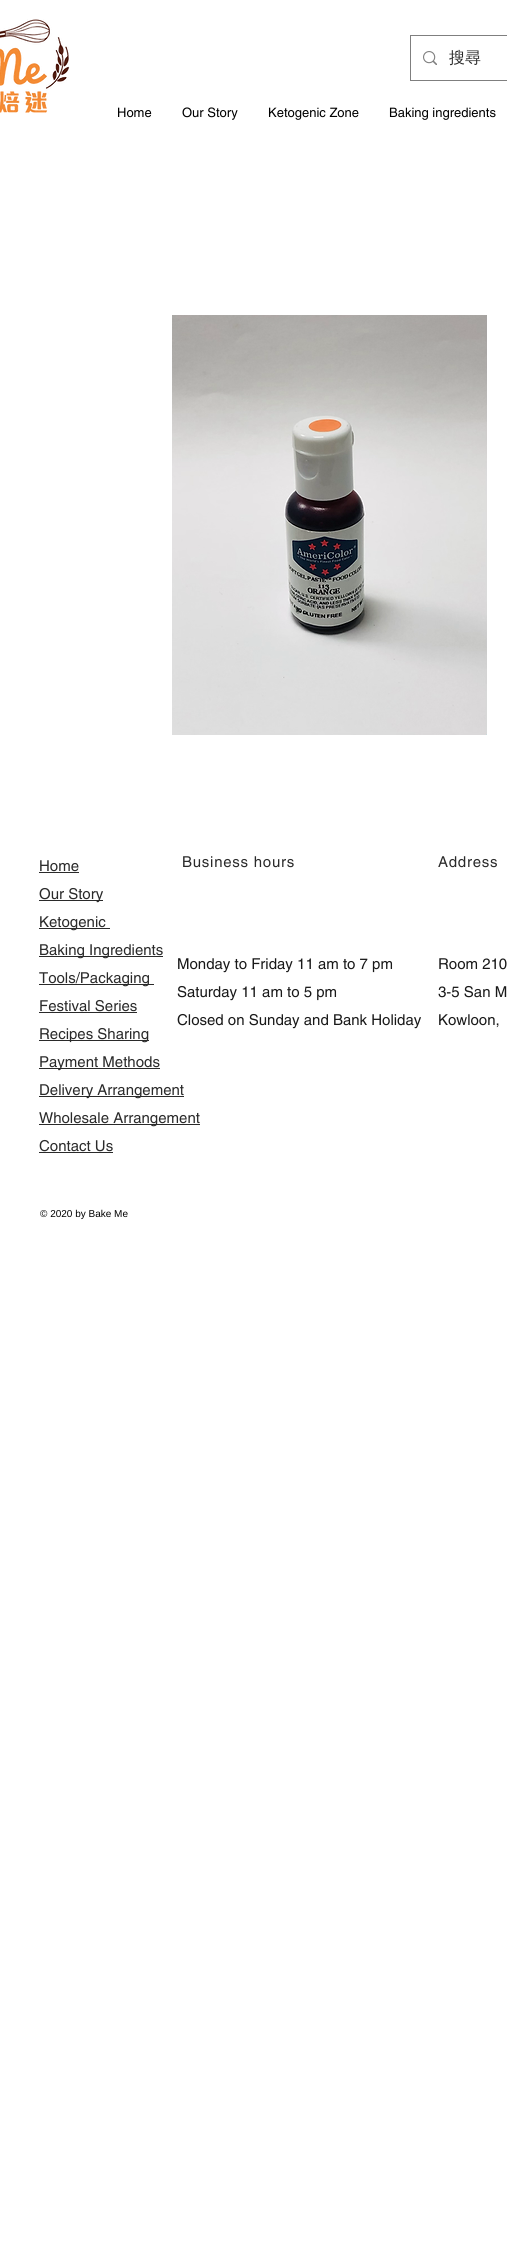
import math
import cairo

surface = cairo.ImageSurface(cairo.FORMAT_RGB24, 507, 2245)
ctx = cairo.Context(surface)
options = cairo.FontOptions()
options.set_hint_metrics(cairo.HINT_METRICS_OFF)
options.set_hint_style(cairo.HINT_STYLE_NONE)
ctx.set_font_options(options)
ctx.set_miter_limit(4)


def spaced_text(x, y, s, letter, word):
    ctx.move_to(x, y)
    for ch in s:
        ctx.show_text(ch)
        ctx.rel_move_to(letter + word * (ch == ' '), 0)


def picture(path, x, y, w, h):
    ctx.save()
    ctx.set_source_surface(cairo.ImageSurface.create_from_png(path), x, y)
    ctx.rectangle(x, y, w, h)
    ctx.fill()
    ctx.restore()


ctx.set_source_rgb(1, 1, 1)
ctx.paint()
picture("img1.png", 0, 19, 70, 94)
ctx.rectangle(410.5, 35.5, 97, 45)
ctx.set_source_rgb(0.498, 0.498, 0.498)
ctx.set_line_width(1)
ctx.stroke()
picture("img2.png", 423, 51, 14, 14)
ctx.select_font_face("WenQuanYi Zen Hei Medium")
ctx.set_font_size(16)
ctx.set_source_rgb(0.165, 0.165, 0.165)
ctx.move_to(449, 63)
ctx.show_text("搜尋")
ctx.select_font_face("helvetica")
ctx.set_font_size(13)
ctx.set_source_rgb(0, 0, 0)
ctx.move_to(117, 117)
ctx.show_text("Home")
ctx.move_to(182, 117)
ctx.show_text("Our Story")
ctx.move_to(268, 117)
ctx.show_text("Ketogenic Zone")
ctx.move_to(389, 117)
ctx.show_text("Baking ingredients")
picture("img3.png", 172, 315, 315, 420)
ctx.set_font_size(15)
ctx.set_source_rgb(0.165, 0.165, 0.165)
ctx.move_to(39, 871)
ctx.show_text("Home")
ctx.rectangle(39, 872, 40, 1)
ctx.fill()
ctx.rectangle(39, 900, 64, 1)
ctx.fill()
ctx.move_to(39, 899)
ctx.show_text("Our Story")
ctx.rectangle(39, 928, 71, 1)
ctx.fill()
ctx.move_to(39, 927)
ctx.show_text("Ketogenic")
ctx.rectangle(39, 956, 124, 1)
ctx.fill()
ctx.move_to(39, 955)
ctx.show_text("Baking Ingredients")
ctx.rectangle(39, 984, 115, 1)
ctx.fill()
ctx.move_to(39, 983)
ctx.show_text("Tools/Packaging")
ctx.move_to(39, 1011)
ctx.show_text("Festival Series")
ctx.rectangle(39, 1012, 98, 1)
ctx.fill()
ctx.rectangle(39, 1040, 110, 1)
ctx.fill()
ctx.move_to(39, 1039)
ctx.show_text("Recipes Sharing")
ctx.rectangle(39, 1068, 121, 1)
ctx.fill()
ctx.move_to(39, 1067)
ctx.show_text("Payment Methods")
ctx.rectangle(39, 1096, 145, 1)
ctx.fill()
ctx.move_to(39, 1095)
ctx.show_text("Delivery Arrangement")
ctx.rectangle(39, 1124, 161, 1)
ctx.fill()
ctx.move_to(39, 1123)
ctx.show_text("Wholesale Arrangement")
ctx.move_to(39, 1151)
ctx.show_text("Contact Us")
ctx.rectangle(39, 1152, 74, 1)
ctx.fill()
spaced_text(182, 867, "Business hours", 0.75, 0)
spaced_text(438, 867, "Address", 0.75, 0)
ctx.set_source_rgb(0.098, 0.098, 0.098)
ctx.move_to(177, 969)
ctx.show_text("Monday to Friday 11 am to 7 pm")
ctx.move_to(177, 997)
ctx.show_text("Saturday 11 am to 5 pm")
ctx.move_to(177, 1025)
ctx.show_text("Closed on Sunday and Bank Holiday")
ctx.move_to(438, 969)
ctx.show_text("Room 210")
ctx.move_to(438, 997)
ctx.show_text("3-5 San M")
ctx.move_to(438, 1025)
ctx.show_text("Kowloon,")
ctx.select_font_face("Liberation Sans")
ctx.set_font_size(10)
ctx.set_source_rgb(0, 0, 0)
ctx.move_to(40, 1217)
ctx.show_text("© 2020 by Bake Me")
surface.write_to_png("page.png")
